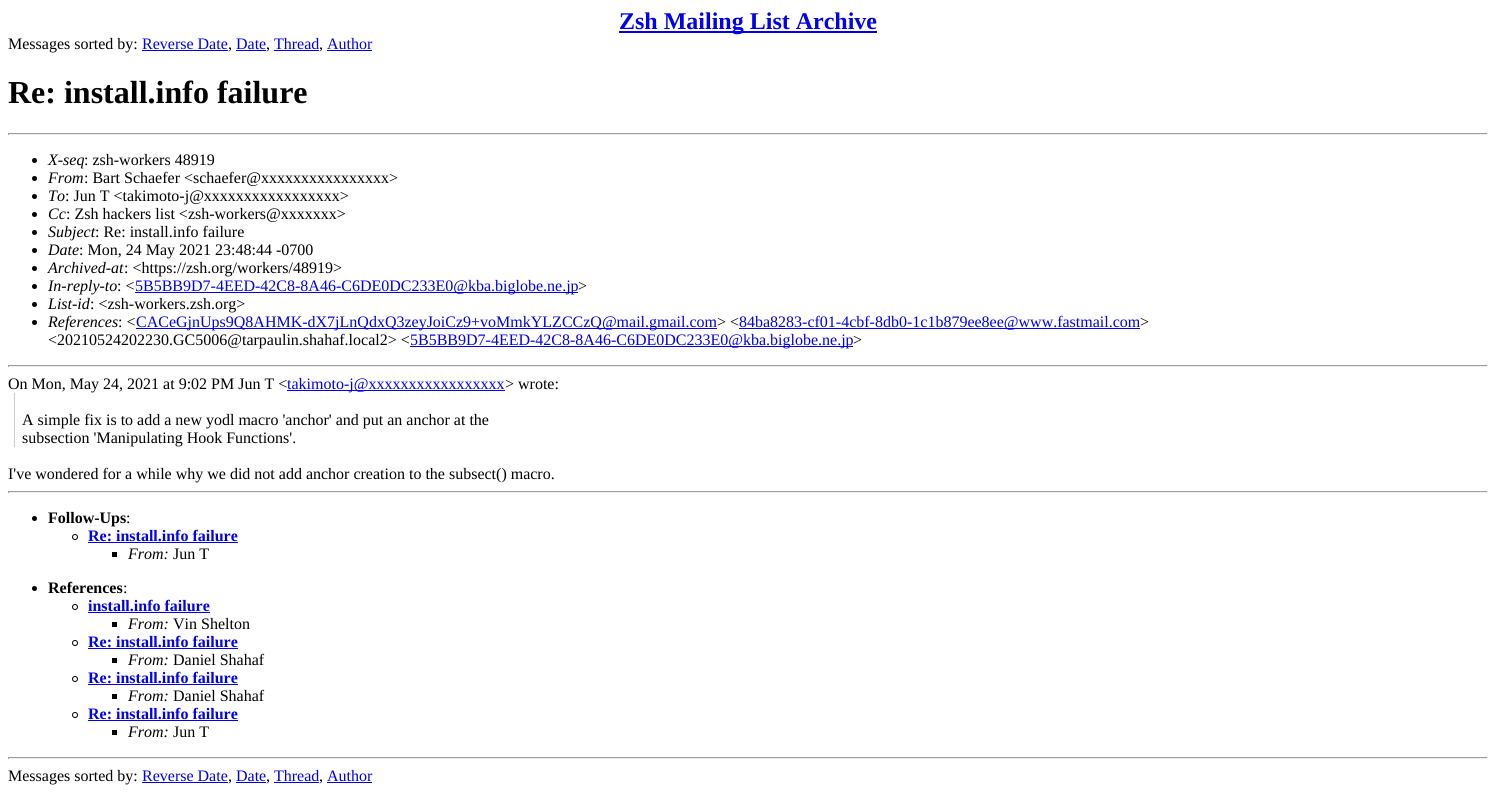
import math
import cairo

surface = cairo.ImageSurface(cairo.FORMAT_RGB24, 1496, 810)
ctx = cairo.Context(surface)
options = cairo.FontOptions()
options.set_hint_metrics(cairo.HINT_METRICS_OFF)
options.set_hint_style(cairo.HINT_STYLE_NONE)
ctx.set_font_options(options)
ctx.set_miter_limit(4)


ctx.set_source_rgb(1, 1, 1)
ctx.paint()
ctx.set_source_rgb(0, 0, 0.933)
ctx.rectangle(619, 31, 258, 2)
ctx.fill()
ctx.select_font_face("Liberation Serif", cairo.FONT_SLANT_NORMAL, cairo.FONT_WEIGHT_BOLD)
ctx.set_font_size(24)
ctx.move_to(619, 29)
ctx.show_text("Zsh Mailing List Archive")
ctx.select_font_face("Liberation Serif")
ctx.set_font_size(16)
ctx.set_source_rgb(0, 0, 0)
ctx.move_to(8, 49)
ctx.show_text("Messages sorted by:")
ctx.set_source_rgb(0, 0, 0.933)
ctx.move_to(142, 49)
ctx.show_text("Reverse Date")
ctx.rectangle(142, 50, 86, 1)
ctx.fill()
ctx.set_source_rgb(0, 0, 0)
ctx.move_to(228, 49)
ctx.show_text(",")
ctx.set_source_rgb(0, 0, 0.933)
ctx.move_to(236, 49)
ctx.show_text("Date")
ctx.rectangle(236, 50, 30, 1)
ctx.fill()
ctx.set_source_rgb(0, 0, 0)
ctx.move_to(266, 49)
ctx.show_text(",")
ctx.set_source_rgb(0, 0, 0.933)
ctx.move_to(274, 49)
ctx.show_text("Thread")
ctx.rectangle(274, 50, 45, 1)
ctx.fill()
ctx.set_source_rgb(0, 0, 0)
ctx.move_to(319, 49)
ctx.show_text(",")
ctx.set_source_rgb(0, 0, 0.933)
ctx.move_to(327, 49)
ctx.show_text("Author")
ctx.rectangle(327, 50, 45, 1)
ctx.fill()
ctx.select_font_face("Liberation Serif", cairo.FONT_SLANT_NORMAL, cairo.FONT_WEIGHT_BOLD)
ctx.set_font_size(32)
ctx.set_source_rgb(0, 0, 0)
ctx.move_to(8, 103)
ctx.show_text("Re: install.info failure")
ctx.set_source_rgb(0.624, 0.624, 0.624)
ctx.rectangle(8, 133, 1480, 1)
ctx.fill()
ctx.set_source_rgb(0.933, 0.933, 0.933)
ctx.rectangle(1487, 133, 1, 2)
ctx.fill()
ctx.rectangle(8, 134, 1480, 1)
ctx.fill()
ctx.set_source_rgb(0.624, 0.624, 0.624)
ctx.rectangle(8, 133, 1, 2)
ctx.fill()
ctx.set_source_rgb(0, 0, 0)
ctx.arc(34.5, 160.5, 2.5, 0, 2 * math.pi)
ctx.fill()
ctx.select_font_face("Liberation Serif", cairo.FONT_SLANT_ITALIC)
ctx.set_font_size(16)
ctx.move_to(48, 165)
ctx.show_text("X-seq")
ctx.select_font_face("Liberation Serif")
ctx.move_to(84, 165)
ctx.show_text(": zsh-workers 48919")
ctx.new_path()
ctx.arc(34.5, 178.5, 2.5, 0, 2 * math.pi)
ctx.fill()
ctx.select_font_face("Liberation Serif", cairo.FONT_SLANT_ITALIC)
ctx.move_to(48, 183)
ctx.show_text("From")
ctx.select_font_face("Liberation Serif")
ctx.move_to(84, 183)
ctx.show_text(": Bart Schaefer <schaefer@xxxxxxxxxxxxxxxx>")
ctx.new_path()
ctx.arc(34.5, 196.5, 2.5, 0, 2 * math.pi)
ctx.fill()
ctx.select_font_face("Liberation Serif", cairo.FONT_SLANT_ITALIC)
ctx.move_to(48, 201)
ctx.show_text("To")
ctx.select_font_face("Liberation Serif")
ctx.move_to(65, 201)
ctx.show_text(": Jun T <takimoto-j@xxxxxxxxxxxxxxxxx>")
ctx.new_path()
ctx.arc(34.5, 214.5, 2.5, 0, 2 * math.pi)
ctx.fill()
ctx.select_font_face("Liberation Serif", cairo.FONT_SLANT_ITALIC)
ctx.move_to(48, 219)
ctx.show_text("Cc")
ctx.select_font_face("Liberation Serif")
ctx.move_to(66, 219)
ctx.show_text(": Zsh hackers list <zsh-workers@xxxxxxx>")
ctx.new_path()
ctx.arc(34.5, 232.5, 2.5, 0, 2 * math.pi)
ctx.fill()
ctx.select_font_face("Liberation Serif", cairo.FONT_SLANT_ITALIC)
ctx.move_to(48, 237)
ctx.show_text("Subject")
ctx.select_font_face("Liberation Serif")
ctx.move_to(95, 237)
ctx.show_text(": Re: install.info failure")
ctx.new_path()
ctx.arc(34.5, 250.5, 2.5, 0, 2 * math.pi)
ctx.fill()
ctx.select_font_face("Liberation Serif", cairo.FONT_SLANT_ITALIC)
ctx.move_to(48, 255)
ctx.show_text("Date")
ctx.select_font_face("Liberation Serif")
ctx.move_to(79, 255)
ctx.show_text(": Mon, 24 May 2021 23:48:44 -0700")
ctx.new_path()
ctx.arc(34.5, 268.5, 2.5, 0, 2 * math.pi)
ctx.fill()
ctx.select_font_face("Liberation Serif", cairo.FONT_SLANT_ITALIC)
ctx.move_to(48, 273)
ctx.show_text("Archived-at")
ctx.select_font_face("Liberation Serif")
ctx.move_to(124, 273)
ctx.show_text(": <https://zsh.org/workers/48919>")
ctx.new_path()
ctx.arc(34.5, 286.5, 2.5, 0, 2 * math.pi)
ctx.fill()
ctx.select_font_face("Liberation Serif", cairo.FONT_SLANT_ITALIC)
ctx.move_to(48, 291)
ctx.show_text("In-reply-to")
ctx.select_font_face("Liberation Serif")
ctx.move_to(117, 291)
ctx.show_text(": <")
ctx.set_source_rgb(0, 0, 0.933)
ctx.rectangle(135, 292, 443, 1)
ctx.fill()
ctx.move_to(135, 291)
ctx.show_text("5B5BB9D7-4EED-42C8-8A46-C6DE0DC233E0@kba.biglobe.ne.jp")
ctx.set_source_rgb(0, 0, 0)
ctx.move_to(578, 291)
ctx.show_text(">")
ctx.new_path()
ctx.arc(34.5, 304.5, 2.5, 0, 2 * math.pi)
ctx.fill()
ctx.select_font_face("Liberation Serif", cairo.FONT_SLANT_ITALIC)
ctx.move_to(48, 309)
ctx.show_text("List-id")
ctx.select_font_face("Liberation Serif")
ctx.move_to(90, 309)
ctx.show_text(": <zsh-workers.zsh.org>")
ctx.new_path()
ctx.arc(34.5, 322.5, 2.5, 0, 2 * math.pi)
ctx.fill()
ctx.select_font_face("Liberation Serif", cairo.FONT_SLANT_ITALIC)
ctx.move_to(48, 327)
ctx.show_text("References")
ctx.select_font_face("Liberation Serif")
ctx.move_to(118, 327)
ctx.show_text(": <")
ctx.set_source_rgb(0, 0, 0.933)
ctx.rectangle(136, 328, 581, 1)
ctx.fill()
ctx.move_to(136, 327)
ctx.show_text("CACeGjnUps9Q8AHMK-dX7jLnQdxQ3zeyJoiCz9+voMmkYLZCCzQ@mail.gmail.com")
ctx.set_source_rgb(0, 0, 0)
ctx.move_to(717, 327)
ctx.show_text("> <")
ctx.set_source_rgb(0, 0, 0.933)
ctx.rectangle(739, 328, 401, 1)
ctx.fill()
ctx.move_to(739, 327)
ctx.show_text("84ba8283-cf01-4cbf-8db0-1c1b879ee8ee@www.fastmail.com")
ctx.set_source_rgb(0, 0, 0)
ctx.move_to(1140, 327)
ctx.show_text(">")
ctx.move_to(48, 345)
ctx.show_text("<20210524202230.GC5006@tarpaulin.shahaf.local2> <")
ctx.set_source_rgb(0, 0, 0.933)
ctx.rectangle(410, 346, 443, 1)
ctx.fill()
ctx.move_to(410, 345)
ctx.show_text("5B5BB9D7-4EED-42C8-8A46-C6DE0DC233E0@kba.biglobe.ne.jp")
ctx.set_source_rgb(0, 0, 0)
ctx.move_to(853, 345)
ctx.show_text(">")
ctx.set_source_rgb(0.624, 0.624, 0.624)
ctx.rectangle(8, 365, 1480, 1)
ctx.fill()
ctx.set_source_rgb(0.933, 0.933, 0.933)
ctx.rectangle(1487, 365, 1, 2)
ctx.fill()
ctx.rectangle(8, 366, 1480, 1)
ctx.fill()
ctx.set_source_rgb(0.624, 0.624, 0.624)
ctx.rectangle(8, 365, 1, 2)
ctx.fill()
ctx.set_source_rgb(0, 0, 0)
ctx.move_to(8, 389)
ctx.show_text("On Mon, May 24, 2021 at 9:02 PM Jun T <")
ctx.set_source_rgb(0, 0, 0.933)
ctx.rectangle(287, 390, 218, 1)
ctx.fill()
ctx.move_to(287, 389)
ctx.show_text("takimoto-j@xxxxxxxxxxxxxxxxx")
ctx.set_source_rgb(0, 0, 0)
ctx.move_to(505, 389)
ctx.show_text("> wrote:")
ctx.set_source_rgb(0.8, 0.8, 0.8)
ctx.rectangle(14, 393, 1, 54)
ctx.fill()
ctx.set_source_rgb(0, 0, 0)
ctx.move_to(22, 425)
ctx.show_text("A simple fix is to add a new yodl macro 'anchor' and put an anchor at the")
ctx.move_to(22, 443)
ctx.show_text("subsection 'Manipulating Hook Functions'.")
ctx.move_to(8, 479)
ctx.show_text("I've wondered for a while why we did not add anchor creation to the subsect() macro.")
ctx.set_source_rgb(0.624, 0.624, 0.624)
ctx.rectangle(8, 491, 1480, 1)
ctx.fill()
ctx.set_source_rgb(0.933, 0.933, 0.933)
ctx.rectangle(1487, 491, 1, 2)
ctx.fill()
ctx.rectangle(8, 492, 1480, 1)
ctx.fill()
ctx.set_source_rgb(0.624, 0.624, 0.624)
ctx.rectangle(8, 491, 1, 2)
ctx.fill()
ctx.set_source_rgb(0, 0, 0)
ctx.arc(34.5, 518.5, 2.5, 0, 2 * math.pi)
ctx.fill()
ctx.select_font_face("Liberation Serif", cairo.FONT_SLANT_NORMAL, cairo.FONT_WEIGHT_BOLD)
ctx.move_to(48, 523)
ctx.show_text("Follow-Ups")
ctx.select_font_face("Liberation Serif")
ctx.move_to(126, 523)
ctx.show_text(":")
ctx.new_path()
ctx.arc(75, 537, 2.5, 0, 2 * math.pi)
ctx.set_line_width(1)
ctx.stroke()
ctx.select_font_face("Liberation Serif", cairo.FONT_SLANT_NORMAL, cairo.FONT_WEIGHT_BOLD)
ctx.set_source_rgb(0, 0, 0.933)
ctx.move_to(88, 541)
ctx.show_text("Re: install.info failure")
ctx.rectangle(88, 542, 150, 1)
ctx.fill()
ctx.set_source_rgb(0, 0, 0)
ctx.rectangle(112, 552, 5, 5)
ctx.fill()
ctx.select_font_face("Liberation Serif", cairo.FONT_SLANT_ITALIC)
ctx.move_to(128, 559)
ctx.show_text("From:")
ctx.select_font_face("Liberation Serif")
ctx.move_to(173, 559)
ctx.show_text("Jun T")
ctx.new_path()
ctx.arc(34.5, 588.5, 2.5, 0, 2 * math.pi)
ctx.fill()
ctx.select_font_face("Liberation Serif", cairo.FONT_SLANT_NORMAL, cairo.FONT_WEIGHT_BOLD)
ctx.move_to(48, 593)
ctx.show_text("References")
ctx.select_font_face("Liberation Serif")
ctx.move_to(123, 593)
ctx.show_text(":")
ctx.new_path()
ctx.arc(75, 607, 2.5, 0, 2 * math.pi)
ctx.stroke()
ctx.select_font_face("Liberation Serif", cairo.FONT_SLANT_NORMAL, cairo.FONT_WEIGHT_BOLD)
ctx.set_source_rgb(0, 0, 0.933)
ctx.move_to(88, 611)
ctx.show_text("install.info failure")
ctx.rectangle(88, 612, 122, 1)
ctx.fill()
ctx.set_source_rgb(0, 0, 0)
ctx.rectangle(112, 622, 5, 5)
ctx.fill()
ctx.select_font_face("Liberation Serif", cairo.FONT_SLANT_ITALIC)
ctx.move_to(128, 629)
ctx.show_text("From:")
ctx.select_font_face("Liberation Serif")
ctx.move_to(173, 629)
ctx.show_text("Vin Shelton")
ctx.new_path()
ctx.arc(75, 643, 2.5, 0, 2 * math.pi)
ctx.stroke()
ctx.select_font_face("Liberation Serif", cairo.FONT_SLANT_NORMAL, cairo.FONT_WEIGHT_BOLD)
ctx.set_source_rgb(0, 0, 0.933)
ctx.move_to(88, 647)
ctx.show_text("Re: install.info failure")
ctx.rectangle(88, 648, 150, 1)
ctx.fill()
ctx.set_source_rgb(0, 0, 0)
ctx.rectangle(112, 658, 5, 5)
ctx.fill()
ctx.select_font_face("Liberation Serif", cairo.FONT_SLANT_ITALIC)
ctx.move_to(128, 665)
ctx.show_text("From:")
ctx.select_font_face("Liberation Serif")
ctx.move_to(173, 665)
ctx.show_text("Daniel Shahaf")
ctx.new_path()
ctx.arc(75, 679, 2.5, 0, 2 * math.pi)
ctx.stroke()
ctx.select_font_face("Liberation Serif", cairo.FONT_SLANT_NORMAL, cairo.FONT_WEIGHT_BOLD)
ctx.set_source_rgb(0, 0, 0.933)
ctx.move_to(88, 683)
ctx.show_text("Re: install.info failure")
ctx.rectangle(88, 684, 150, 1)
ctx.fill()
ctx.set_source_rgb(0, 0, 0)
ctx.rectangle(112, 694, 5, 5)
ctx.fill()
ctx.select_font_face("Liberation Serif", cairo.FONT_SLANT_ITALIC)
ctx.move_to(128, 701)
ctx.show_text("From:")
ctx.select_font_face("Liberation Serif")
ctx.move_to(173, 701)
ctx.show_text("Daniel Shahaf")
ctx.new_path()
ctx.arc(75, 715, 2.5, 0, 2 * math.pi)
ctx.stroke()
ctx.select_font_face("Liberation Serif", cairo.FONT_SLANT_NORMAL, cairo.FONT_WEIGHT_BOLD)
ctx.set_source_rgb(0, 0, 0.933)
ctx.move_to(88, 719)
ctx.show_text("Re: install.info failure")
ctx.rectangle(88, 720, 150, 1)
ctx.fill()
ctx.set_source_rgb(0, 0, 0)
ctx.rectangle(112, 730, 5, 5)
ctx.fill()
ctx.select_font_face("Liberation Serif", cairo.FONT_SLANT_ITALIC)
ctx.move_to(128, 737)
ctx.show_text("From:")
ctx.select_font_face("Liberation Serif")
ctx.move_to(173, 737)
ctx.show_text("Jun T")
ctx.set_source_rgb(0.624, 0.624, 0.624)
ctx.rectangle(8, 757, 1480, 1)
ctx.fill()
ctx.set_source_rgb(0.933, 0.933, 0.933)
ctx.rectangle(1487, 757, 1, 2)
ctx.fill()
ctx.rectangle(8, 758, 1480, 1)
ctx.fill()
ctx.set_source_rgb(0.624, 0.624, 0.624)
ctx.rectangle(8, 757, 1, 2)
ctx.fill()
ctx.set_source_rgb(0, 0, 0)
ctx.move_to(8, 781)
ctx.show_text("Messages sorted by:")
ctx.set_source_rgb(0, 0, 0.933)
ctx.move_to(142, 781)
ctx.show_text("Reverse Date")
ctx.rectangle(142, 782, 86, 1)
ctx.fill()
ctx.set_source_rgb(0, 0, 0)
ctx.move_to(228, 781)
ctx.show_text(",")
ctx.set_source_rgb(0, 0, 0.933)
ctx.move_to(236, 781)
ctx.show_text("Date")
ctx.rectangle(236, 782, 30, 1)
ctx.fill()
ctx.set_source_rgb(0, 0, 0)
ctx.move_to(266, 781)
ctx.show_text(",")
ctx.set_source_rgb(0, 0, 0.933)
ctx.move_to(274, 781)
ctx.show_text("Thread")
ctx.rectangle(274, 782, 45, 1)
ctx.fill()
ctx.set_source_rgb(0, 0, 0)
ctx.move_to(319, 781)
ctx.show_text(",")
ctx.set_source_rgb(0, 0, 0.933)
ctx.move_to(327, 781)
ctx.show_text("Author")
ctx.rectangle(327, 782, 45, 1)
ctx.fill()
surface.write_to_png("page.png")
